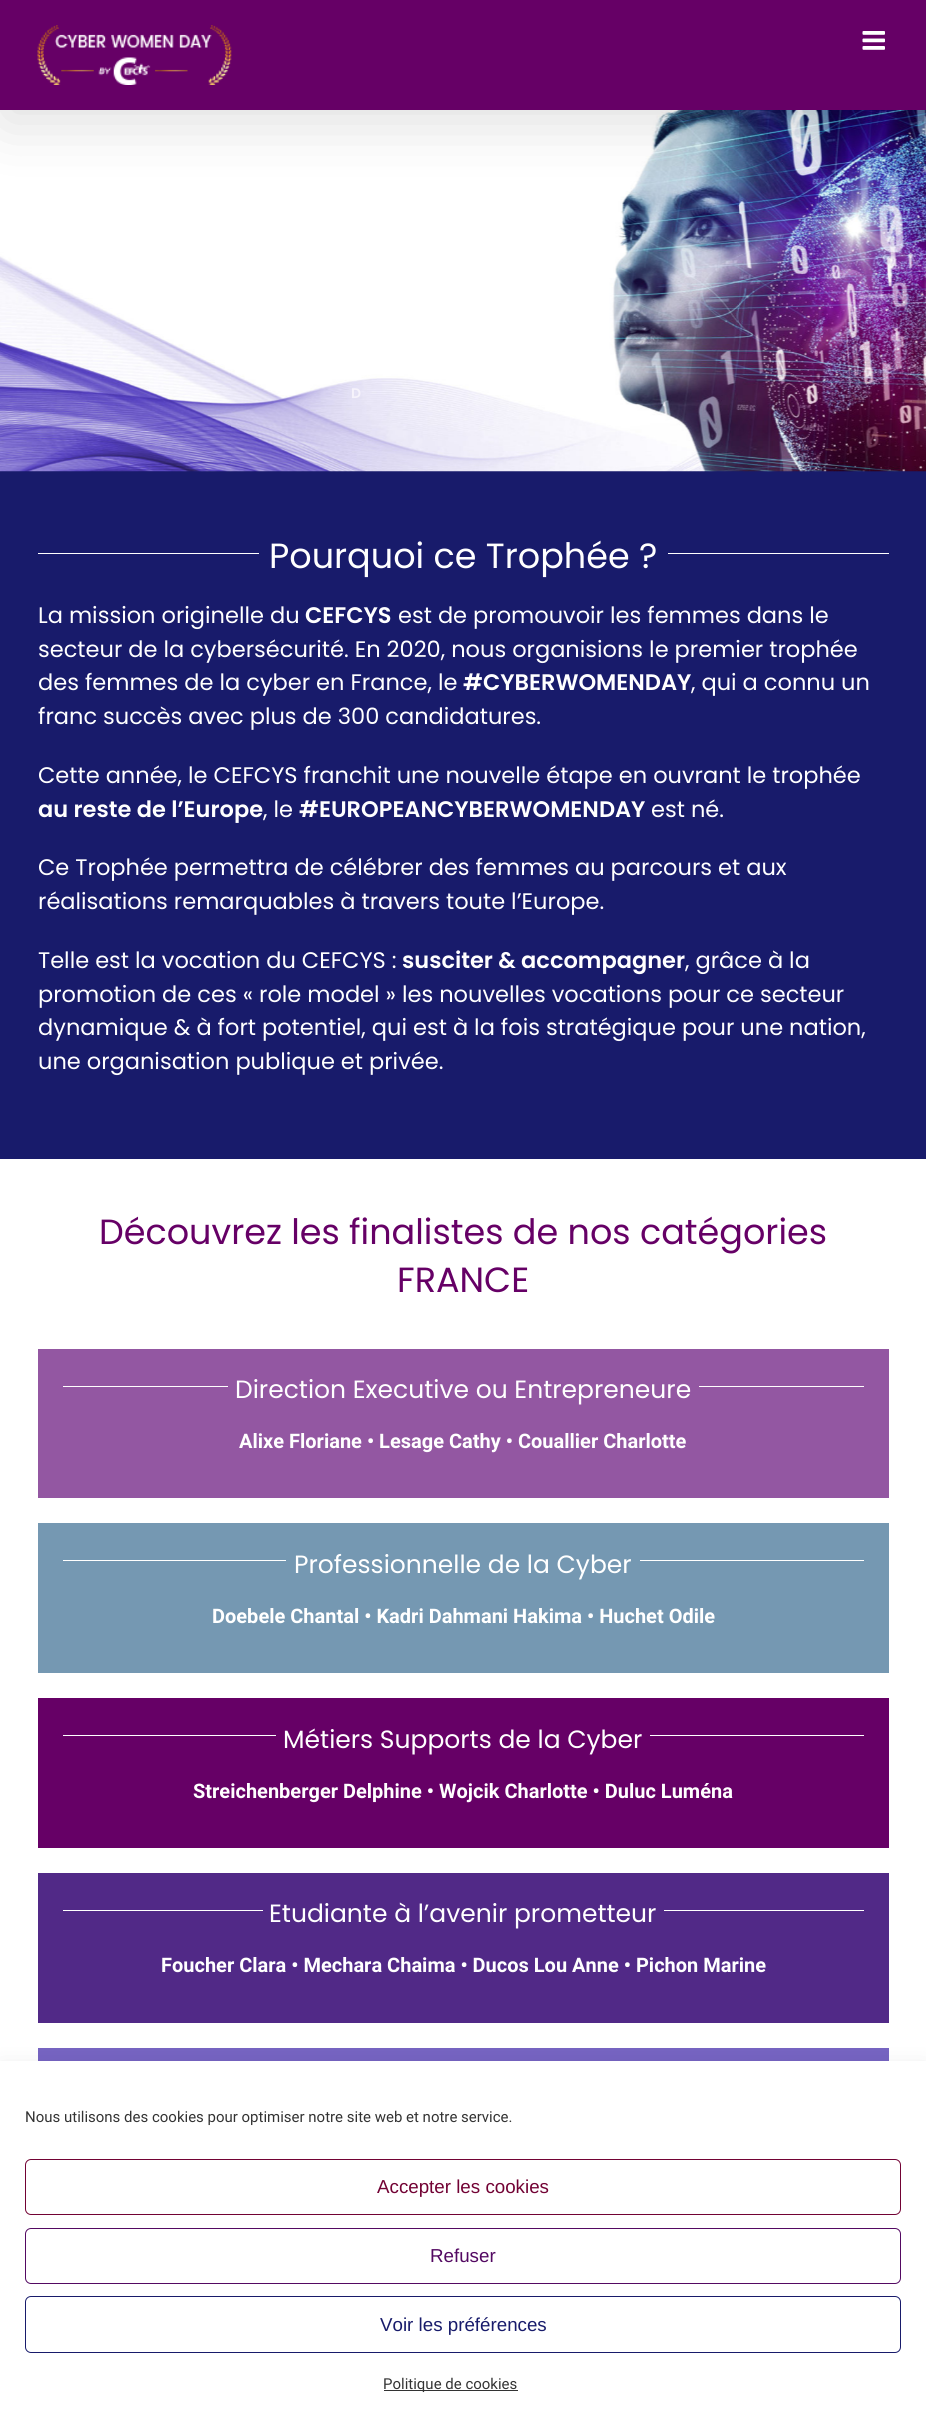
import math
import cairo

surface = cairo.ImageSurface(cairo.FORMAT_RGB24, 926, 2420)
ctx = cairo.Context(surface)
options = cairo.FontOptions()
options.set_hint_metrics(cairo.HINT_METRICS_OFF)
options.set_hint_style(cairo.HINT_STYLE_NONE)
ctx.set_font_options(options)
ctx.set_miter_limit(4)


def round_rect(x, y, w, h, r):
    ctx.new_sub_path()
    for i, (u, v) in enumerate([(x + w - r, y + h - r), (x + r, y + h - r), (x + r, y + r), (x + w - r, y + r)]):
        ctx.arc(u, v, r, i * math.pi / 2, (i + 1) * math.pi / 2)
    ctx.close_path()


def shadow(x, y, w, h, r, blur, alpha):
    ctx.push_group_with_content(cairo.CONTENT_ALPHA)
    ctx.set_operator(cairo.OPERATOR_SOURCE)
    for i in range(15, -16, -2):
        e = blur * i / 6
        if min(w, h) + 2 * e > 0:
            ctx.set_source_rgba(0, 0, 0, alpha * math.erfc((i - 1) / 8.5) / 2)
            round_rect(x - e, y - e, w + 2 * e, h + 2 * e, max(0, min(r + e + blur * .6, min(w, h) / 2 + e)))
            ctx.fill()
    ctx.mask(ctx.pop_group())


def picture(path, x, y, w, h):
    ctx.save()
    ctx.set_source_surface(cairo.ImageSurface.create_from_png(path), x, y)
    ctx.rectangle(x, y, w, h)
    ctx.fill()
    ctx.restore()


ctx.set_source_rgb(1, 1, 1)
ctx.paint()
ctx.set_source_rgb(0.094, 0.106, 0.42)
ctx.rectangle(0, 471, 926, 688)
ctx.fill()
picture("img3.png", 0, 110, 926, 362)
ctx.set_source_rgb(0, 0, 0)
shadow(3, 15, 921, 105, 0, 31, 0.14)
ctx.set_source_rgb(0.4, 0, 0.4)
ctx.rectangle(0, 0, 926, 110)
ctx.fill()
picture("img1.png", 37, 25, 195, 60)
picture("img2.png", 862, 31, 23, 19)
ctx.select_font_face("Poppins SemiBold")
ctx.set_font_size(14)
ctx.set_source_rgb(0.961, 0.953, 0.984)
ctx.move_to(351, 398)
ctx.show_text("D")
ctx.set_source_rgb(1, 1, 1)
ctx.rectangle(38, 553, 221, 1)
ctx.fill()
ctx.select_font_face("Poppins")
ctx.set_font_size(35)
ctx.move_to(269, 568)
ctx.show_text("Pourquoi ce Trophée ?")
ctx.rectangle(668, 553, 221, 1)
ctx.fill()
ctx.set_font_size(22.5)
ctx.move_to(38, 623)
ctx.show_text("La mission originelle du")
ctx.select_font_face("Poppins SemiBold")
ctx.move_to(305, 623)
ctx.show_text("CEFCYS")
ctx.select_font_face("Poppins")
ctx.move_to(398, 623)
ctx.show_text("est de promouvoir les femmes dans le")
ctx.move_to(38, 657)
ctx.show_text("secteur de la cybersécurité. En 2020, nous organisions le premier trophée")
ctx.move_to(38, 690)
ctx.show_text("des femmes de la cyber en France, le")
ctx.select_font_face("Poppins SemiBold")
ctx.move_to(463, 690)
ctx.show_text("#CYBERWOMENDAY")
ctx.select_font_face("Poppins")
ctx.move_to(691, 690)
ctx.show_text(", qui a connu un")
ctx.move_to(38, 724)
ctx.show_text("franc succès avec plus de 300 candidatures.")
ctx.move_to(38, 783)
ctx.show_text("Cette année, le CEFCYS franchit une nouvelle étape en ouvrant le trophée")
ctx.select_font_face("Poppins SemiBold")
ctx.move_to(38, 817)
ctx.show_text("au reste de l’Europe")
ctx.select_font_face("Poppins")
ctx.move_to(263, 817)
ctx.show_text(", le")
ctx.select_font_face("Poppins SemiBold")
ctx.move_to(299, 817)
ctx.show_text("#EUROPEANCYBERWOMENDAY")
ctx.select_font_face("Poppins")
ctx.move_to(651, 817)
ctx.show_text("est né.")
ctx.move_to(38, 875)
ctx.show_text("Ce Trophée permettra de célébrer des femmes au parcours et aux")
ctx.move_to(38, 909)
ctx.show_text("réalisations remarquables à travers toute l’Europe.")
ctx.move_to(38, 968)
ctx.show_text("Telle est la vocation du CEFCYS :")
ctx.select_font_face("Poppins SemiBold")
ctx.move_to(402, 968)
ctx.show_text("susciter & accompagner")
ctx.select_font_face("Poppins")
ctx.move_to(685, 968)
ctx.show_text(", grâce à la")
ctx.move_to(38, 1002)
ctx.show_text("promotion de ces « role model » les nouvelles vocations pour ce secteur")
ctx.move_to(38, 1035)
ctx.show_text("dynamique & à fort potentiel, qui est à la fois stratégique pour une nation,")
ctx.move_to(38, 1069)
ctx.show_text("une organisation publique et privée.")
ctx.set_font_size(35)
ctx.set_source_rgb(0.4, 0, 0.4)
ctx.move_to(99, 1244)
ctx.show_text("Découvrez les finalistes de nos catégories")
ctx.move_to(397, 1292)
ctx.show_text("FRANCE")
ctx.set_source_rgb(0.576, 0.341, 0.635)
ctx.rectangle(38, 1349, 851, 149)
ctx.fill()
ctx.set_source_rgb(1, 1, 1)
ctx.rectangle(63, 1386, 165, 1)
ctx.fill()
ctx.set_font_size(25)
ctx.move_to(235, 1398)
ctx.show_text("Direction Executive ou Entrepreneure")
ctx.rectangle(699, 1386, 165, 1)
ctx.fill()
ctx.select_font_face("Roboto", cairo.FONT_SLANT_NORMAL, cairo.FONT_WEIGHT_BOLD)
ctx.set_font_size(20)
ctx.move_to(239, 1448)
ctx.show_text("Alixe Floriane • Lesage Cathy • Couallier Charlotte")
ctx.set_source_rgb(0.459, 0.596, 0.698)
ctx.rectangle(38, 1523, 851, 150)
ctx.fill()
ctx.set_source_rgb(1, 1, 1)
ctx.rectangle(63, 1560, 223, 1)
ctx.fill()
ctx.select_font_face("Poppins")
ctx.set_font_size(25)
ctx.move_to(294, 1573)
ctx.show_text("Professionnelle de la Cyber")
ctx.rectangle(640, 1560, 224, 1)
ctx.fill()
ctx.select_font_face("Roboto", cairo.FONT_SLANT_NORMAL, cairo.FONT_WEIGHT_BOLD)
ctx.set_font_size(20)
ctx.move_to(212, 1623)
ctx.show_text("Doebele Chantal • Kadri Dahmani Hakima • Huchet Odile")
ctx.set_source_rgb(0.4, 0, 0.4)
ctx.rectangle(38, 1698, 851, 150)
ctx.fill()
ctx.set_source_rgb(1, 1, 1)
ctx.rectangle(63, 1735, 213, 1)
ctx.fill()
ctx.select_font_face("Poppins")
ctx.set_font_size(25)
ctx.move_to(283, 1748)
ctx.show_text("Métiers Supports de la Cyber")
ctx.rectangle(650, 1735, 214, 1)
ctx.fill()
ctx.select_font_face("Roboto", cairo.FONT_SLANT_NORMAL, cairo.FONT_WEIGHT_BOLD)
ctx.set_font_size(20)
ctx.move_to(193, 1798)
ctx.show_text("Streichenberger Delphine • Wojcik Charlotte • Duluc Luména")
ctx.set_source_rgb(0.318, 0.161, 0.529)
ctx.rectangle(38, 1873, 851, 150)
ctx.fill()
ctx.set_source_rgb(1, 1, 1)
ctx.rectangle(63, 1910, 200, 1)
ctx.fill()
ctx.select_font_face("Poppins")
ctx.set_font_size(25)
ctx.move_to(269, 1922)
ctx.show_text("Etudiante à l’avenir prometteur")
ctx.rectangle(664, 1910, 200, 1)
ctx.fill()
ctx.select_font_face("Roboto", cairo.FONT_SLANT_NORMAL, cairo.FONT_WEIGHT_BOLD)
ctx.set_font_size(20)
ctx.move_to(161, 1972)
ctx.show_text("Foucher Clara • Mechara Chaima • Ducos Lou Anne • Pichon Marine")
ctx.set_source_rgb(0.463, 0.392, 0.761)
ctx.rectangle(38, 2048, 851, 13)
ctx.fill()
ctx.set_source_rgb(0, 0, 0)
shadow(0, 2074, 926, 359, 0, 12.5, 0.19)
ctx.set_source_rgb(1, 1, 1)
ctx.rectangle(0, 2061, 926, 359)
ctx.fill()
ctx.select_font_face("Roboto")
ctx.set_font_size(15)
ctx.set_source_rgb(0.2, 0.2, 0.2)
ctx.move_to(25, 2122)
ctx.show_text("Nous utilisons des cookies pour optimiser notre site web et notre service.")
round_rect(25.5, 2159.5, 875, 55, 5.5)
ctx.set_source_rgb(0.447, 0.008, 0.204)
ctx.set_line_width(1)
ctx.stroke()
ctx.select_font_face("Liberation Sans")
ctx.set_font_size(18.75)
ctx.move_to(377, 2193)
ctx.show_text("Accepter les cookies")
round_rect(25.5, 2228.5, 875, 55, 5.5)
ctx.set_source_rgb(0.325, 0.039, 0.384)
ctx.stroke()
ctx.move_to(430, 2262)
ctx.show_text("Refuser")
round_rect(25.5, 2296.5, 875, 56, 5.5)
ctx.set_source_rgb(0.094, 0.106, 0.42)
ctx.stroke()
ctx.move_to(380, 2331)
ctx.show_text("Voir les préférences")
ctx.set_source_rgb(0.2, 0.2, 0.2)
ctx.rectangle(384, 2390, 134, 1)
ctx.fill()
ctx.select_font_face("Roboto")
ctx.set_font_size(15)
ctx.move_to(383, 2389)
ctx.show_text("Politique de cookies")
surface.write_to_png("page.png")
